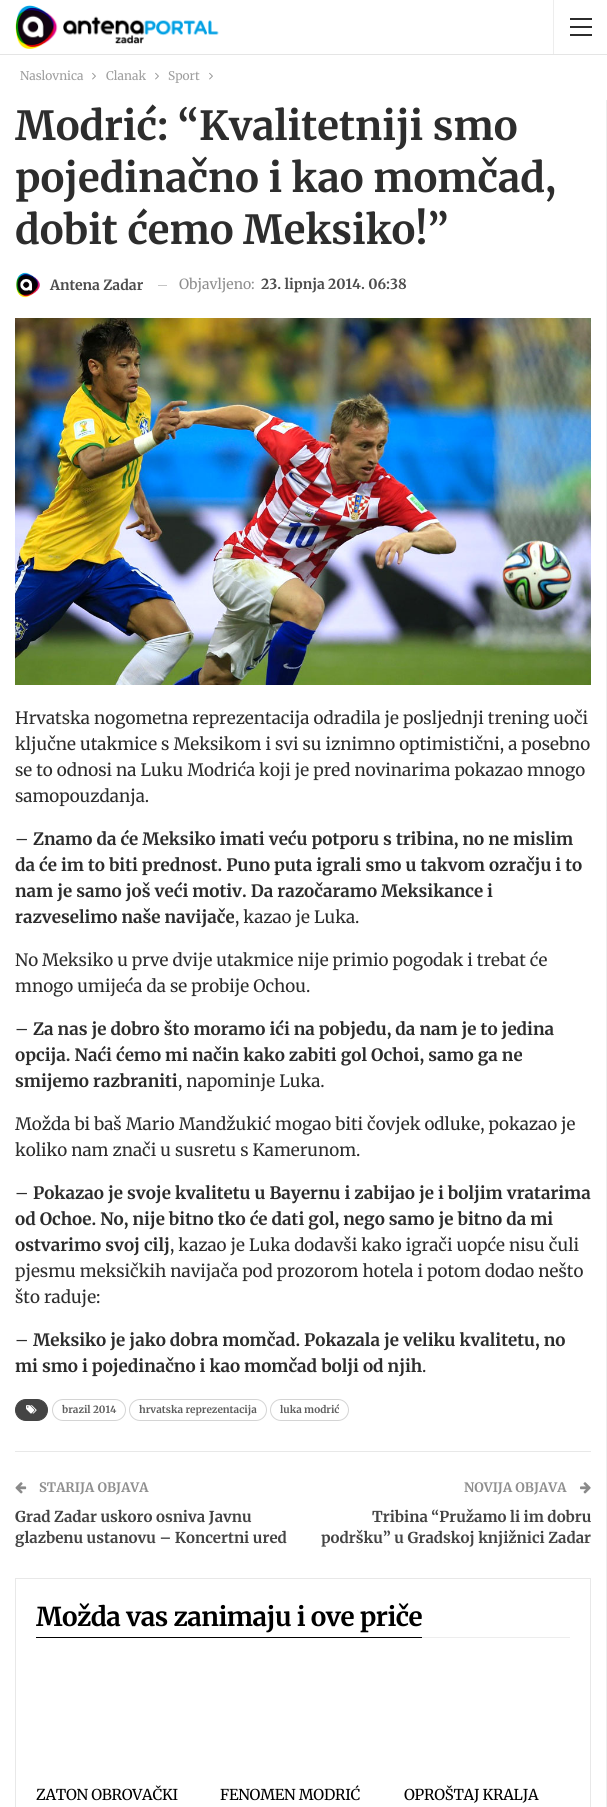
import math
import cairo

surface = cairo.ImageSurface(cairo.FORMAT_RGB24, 607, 1807)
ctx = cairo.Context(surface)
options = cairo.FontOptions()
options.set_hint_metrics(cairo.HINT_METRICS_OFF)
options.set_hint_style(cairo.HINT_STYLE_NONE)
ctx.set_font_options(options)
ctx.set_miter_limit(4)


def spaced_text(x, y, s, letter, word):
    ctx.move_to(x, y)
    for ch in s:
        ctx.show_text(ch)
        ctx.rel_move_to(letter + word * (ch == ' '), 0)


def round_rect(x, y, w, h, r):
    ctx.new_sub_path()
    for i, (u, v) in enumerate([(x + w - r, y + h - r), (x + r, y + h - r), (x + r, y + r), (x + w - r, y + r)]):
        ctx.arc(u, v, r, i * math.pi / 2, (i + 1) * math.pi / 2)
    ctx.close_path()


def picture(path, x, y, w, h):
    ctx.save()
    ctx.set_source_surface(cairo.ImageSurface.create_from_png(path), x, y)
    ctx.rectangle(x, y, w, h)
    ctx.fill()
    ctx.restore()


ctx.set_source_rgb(1, 1, 1)
ctx.paint()
ctx.set_source_rgb(0.898, 0.898, 0.898)
ctx.rectangle(0, 54, 607, 1)
ctx.fill()
picture("img1.png", 15, 5, 204, 44)
ctx.set_source_rgb(0.929, 0.929, 0.929)
ctx.rectangle(553, 0, 1, 54)
ctx.fill()
ctx.set_source_rgb(0.173, 0.173, 0.173)
ctx.rectangle(570, 26, 22, 2)
ctx.fill()
ctx.rectangle(570, 18, 22, 2)
ctx.fill()
ctx.rectangle(570, 34, 22, 2)
ctx.fill()
ctx.select_font_face("Merriweather")
ctx.set_font_size(12)
ctx.set_source_rgb(0.62, 0.62, 0.62)
ctx.move_to(20, 80)
ctx.show_text("Naslovnica")
picture("img2.png", 92, 72, 4, 8)
ctx.move_to(106, 80)
ctx.show_text("Clanak")
picture("img2.png", 155, 72, 4, 8)
ctx.move_to(168, 80)
ctx.show_text("Sport")
picture("img2.png", 209, 72, 4, 8)
ctx.set_source_rgb(0.933, 0.933, 0.933)
ctx.rectangle(606, 100, 1, 1707)
ctx.fill()
ctx.select_font_face("Merriweather", cairo.FONT_SLANT_NORMAL, cairo.FONT_WEIGHT_BOLD)
ctx.set_font_size(40)
ctx.set_source_rgb(0.176, 0.176, 0.176)
ctx.move_to(15, 140)
ctx.show_text("Modrić: “Kvalitetniji smo")
ctx.move_to(15, 192)
ctx.show_text("pojedinačno i kao momčad,")
ctx.move_to(15, 244)
ctx.show_text("dobit ćemo Meksiko!”")
picture("img3.png", 16, 272, 24, 26)
ctx.set_font_size(14)
ctx.set_source_rgb(0.302, 0.302, 0.302)
ctx.move_to(50, 290)
ctx.show_text("Antena Zadar")
ctx.set_source_rgb(0.769, 0.769, 0.769)
ctx.rectangle(158, 285, 9, 1)
ctx.fill()
ctx.select_font_face("Merriweather")
ctx.set_source_rgb(0.561, 0.561, 0.561)
ctx.move_to(179, 289)
ctx.show_text("Objavljeno:")
ctx.select_font_face("Merriweather", cairo.FONT_SLANT_NORMAL, cairo.FONT_WEIGHT_BOLD)
ctx.set_source_rgb(0.302, 0.302, 0.302)
ctx.move_to(261, 289)
ctx.show_text("23. lipnja 2014. 06:38")
picture("img4.png", 15, 318, 576, 367)
ctx.select_font_face("Merriweather")
ctx.set_font_size(17)
ctx.set_source_rgb(0.176, 0.176, 0.176)
ctx.move_to(15, 724)
ctx.show_text("Hrvatska nogometna reprezentacija odradila je posljednji trening uoči")
ctx.move_to(15, 750)
ctx.show_text("ključne utakmice s Meksikom i svi su iznimno optimistični, a posebno")
ctx.move_to(15, 776)
ctx.show_text("se to odnosi na Luku Modrića koji je pred novinarima pokazao mnogo")
ctx.move_to(15, 802)
ctx.show_text("samopouzdanja.")
ctx.move_to(15, 845)
ctx.show_text("–")
ctx.select_font_face("Merriweather", cairo.FONT_SLANT_NORMAL, cairo.FONT_WEIGHT_BOLD)
ctx.move_to(33, 845)
ctx.show_text("Znamo da će Meksiko imati veću potporu s tribina, no ne mislim")
ctx.move_to(15, 871)
ctx.show_text("da će im to biti prednost. Puno puta igrali smo u takvom ozračju i to")
ctx.move_to(15, 897)
ctx.show_text("nam je samo još veći motiv. Da razočaramo Meksikance i")
ctx.move_to(15, 923)
ctx.show_text("razveselimo naše navijače")
ctx.select_font_face("Merriweather")
ctx.move_to(235, 923)
ctx.show_text(", kazao je Luka.")
ctx.move_to(15, 966)
ctx.show_text("No Meksiko u prve dvije utakmice nije primio pogodak i trebat će")
ctx.move_to(15, 992)
ctx.show_text("mnogo umijeća da se probije Ochou.")
ctx.move_to(15, 1035)
ctx.show_text("–")
ctx.select_font_face("Merriweather", cairo.FONT_SLANT_NORMAL, cairo.FONT_WEIGHT_BOLD)
ctx.move_to(33, 1035)
ctx.show_text("Za nas je dobro što moramo ići na pobjedu, da nam je to jedina")
ctx.move_to(15, 1061)
ctx.show_text("opcija. Naći ćemo mi način kako zabiti gol Ochoi, samo ga ne")
ctx.move_to(15, 1087)
ctx.show_text("smijemo razbraniti")
ctx.select_font_face("Merriweather")
ctx.move_to(178, 1087)
ctx.show_text(", napominje Luka.")
ctx.move_to(15, 1130)
ctx.show_text("Možda bi baš Mario Mandžukić mogao biti čovjek odluke, pokazao je")
ctx.move_to(15, 1156)
ctx.show_text("koliko nam znači u susretu s Kamerunom.")
ctx.move_to(15, 1199)
ctx.show_text("–")
ctx.select_font_face("Merriweather", cairo.FONT_SLANT_NORMAL, cairo.FONT_WEIGHT_BOLD)
ctx.move_to(33, 1199)
ctx.show_text("Pokazao je svoje kvalitetu u Bayernu i zabijao je i boljim vratarima")
ctx.move_to(15, 1225)
ctx.show_text("od Ochoe. No, nije bitno tko će dati gol, nego samo je bitno da mi")
ctx.move_to(15, 1251)
ctx.show_text("ostvarimo svoj cilj")
ctx.select_font_face("Merriweather")
ctx.move_to(170, 1251)
ctx.show_text(", kazao je Luka dodavši kako igrači uopće nisu čuli")
ctx.move_to(15, 1277)
ctx.show_text("pjesmu meksičkih navijača pod prozorom hotela i potom dodao nešto")
ctx.move_to(15, 1303)
ctx.show_text("što raduje:")
ctx.move_to(15, 1346)
ctx.show_text("–")
ctx.select_font_face("Merriweather", cairo.FONT_SLANT_NORMAL, cairo.FONT_WEIGHT_BOLD)
ctx.move_to(33, 1346)
ctx.show_text("Meksiko je jako dobra momčad. Pokazala je veliku kvalitetu, no")
ctx.move_to(15, 1372)
ctx.show_text("mi smo i pojedinačno i kao momčad bolji od njih")
ctx.select_font_face("Merriweather")
ctx.move_to(422, 1372)
ctx.show_text(".")
ctx.set_source_rgb(0.267, 0.267, 0.267)
round_rect(15.5, 1399.5, 32, 21, 10.5)
ctx.fill_preserve()
ctx.set_line_width(1)
ctx.stroke()
picture("img5.png", 26, 1405, 11, 9)
round_rect(52.5, 1399.5, 73, 21, 10.5)
ctx.set_source_rgb(0.831, 0.831, 0.831)
ctx.stroke()
ctx.select_font_face("Merriweather", cairo.FONT_SLANT_NORMAL, cairo.FONT_WEIGHT_BOLD)
ctx.set_font_size(10)
ctx.set_source_rgb(0.373, 0.373, 0.373)
ctx.move_to(62, 1413)
ctx.show_text("brazil 2014")
round_rect(129.5, 1399.5, 137, 21, 10.5)
ctx.set_source_rgb(0.831, 0.831, 0.831)
ctx.stroke()
ctx.set_source_rgb(0.373, 0.373, 0.373)
ctx.move_to(139, 1413)
ctx.show_text("hrvatska reprezentacija")
round_rect(270.5, 1399.5, 78, 21, 10.5)
ctx.set_source_rgb(0.831, 0.831, 0.831)
ctx.stroke()
ctx.set_source_rgb(0.373, 0.373, 0.373)
ctx.move_to(280, 1413)
ctx.show_text("luka modrić")
ctx.set_source_rgb(0.91, 0.91, 0.91)
ctx.rectangle(15, 1451, 576, 1)
ctx.fill()
picture("img6.png", 15, 1482, 12, 12)
ctx.set_font_size(13)
ctx.set_source_rgb(0.561, 0.561, 0.561)
ctx.move_to(39, 1492)
ctx.show_text("STARIJA OBJAVA")
ctx.set_font_size(15)
ctx.set_source_rgb(0.267, 0.267, 0.267)
ctx.move_to(15, 1522)
ctx.show_text("Grad Zadar uskoro osniva Javnu")
ctx.move_to(15, 1543)
ctx.show_text("glazbenu ustanovu – Koncertni ured")
ctx.set_font_size(13)
ctx.set_source_rgb(0.561, 0.561, 0.561)
ctx.move_to(464, 1492)
ctx.show_text("NOVIJA OBJAVA")
picture("img7.png", 580, 1482, 11, 12)
ctx.set_font_size(15)
ctx.set_source_rgb(0.267, 0.267, 0.267)
ctx.move_to(372, 1522)
ctx.show_text("Tribina “Pružamo li im dobru")
ctx.move_to(321, 1543)
ctx.show_text("podršku” u Gradskoj knjižnici Zadar")
ctx.rectangle(15.5, 1578.5, 575, 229)
ctx.set_source_rgb(0.91, 0.91, 0.91)
ctx.stroke()
ctx.set_font_size(26)
ctx.set_source_rgb(0, 0, 0)
spaced_text(36, 1626, "Možda vas zanimaju i ove priče", -0.5, 0)
ctx.rectangle(36, 1637, 386, 1)
ctx.fill()
ctx.set_source_rgb(0.929, 0.929, 0.929)
ctx.rectangle(422, 1637, 148, 1)
ctx.fill()
ctx.select_font_face("Merriweather")
ctx.set_font_size(15)
ctx.set_source_rgb(0, 0, 0)
spaced_text(36, 1800, "ZATON OBROVAČKI", -0.25, 0)
spaced_text(220, 1800, "FENOMEN MODRIĆ", -0.25, 0)
spaced_text(404, 1800, "OPROŠTAJ KRALJA", -0.25, 0)
surface.write_to_png("page.png")
